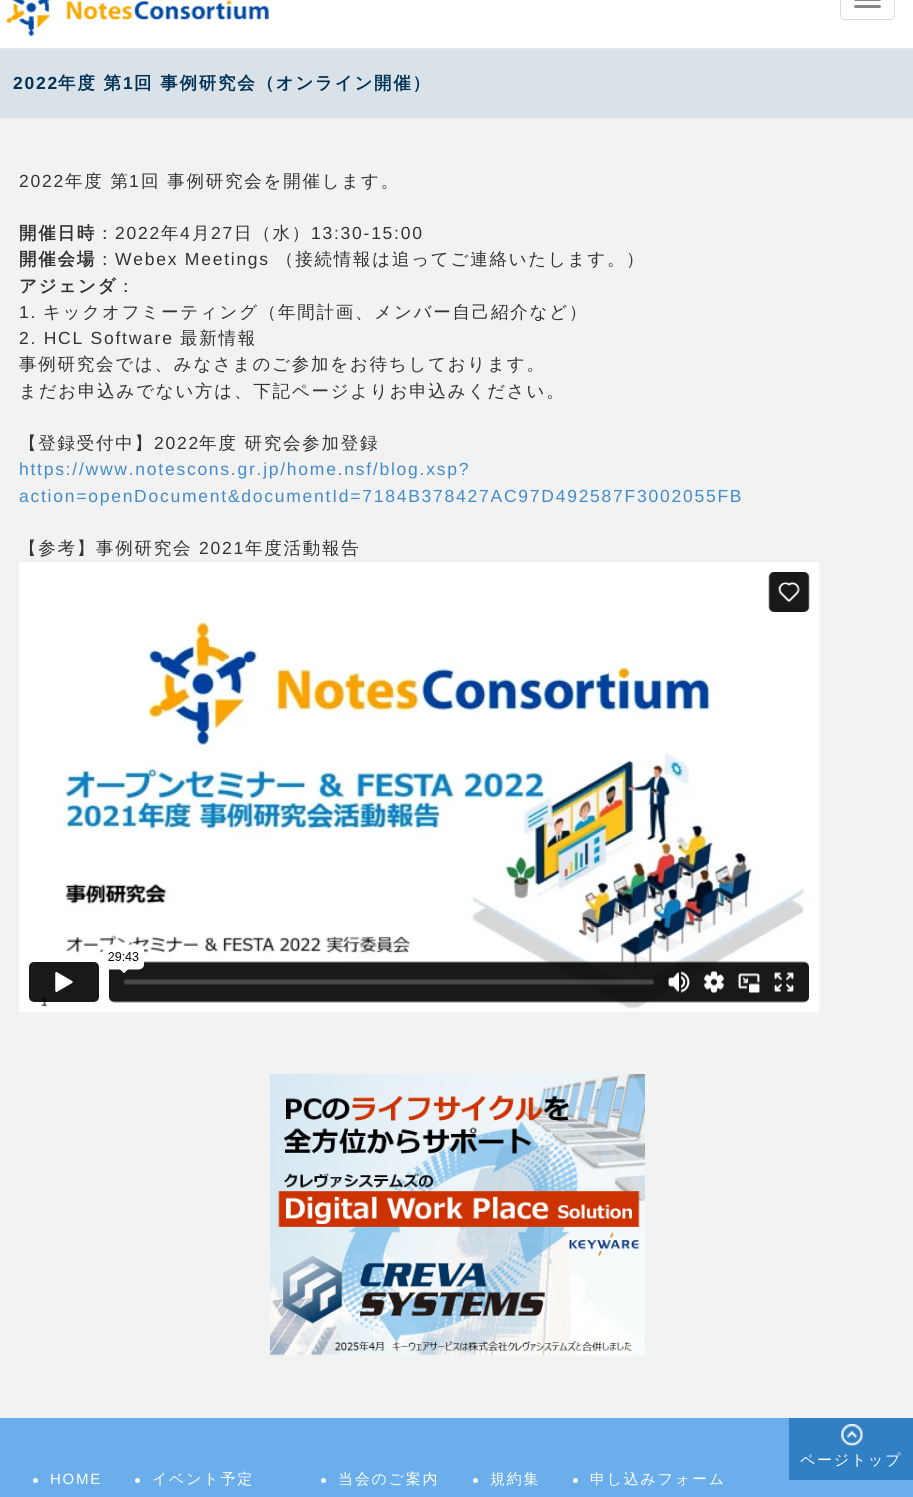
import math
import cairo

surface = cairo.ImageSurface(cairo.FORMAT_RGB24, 913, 1497)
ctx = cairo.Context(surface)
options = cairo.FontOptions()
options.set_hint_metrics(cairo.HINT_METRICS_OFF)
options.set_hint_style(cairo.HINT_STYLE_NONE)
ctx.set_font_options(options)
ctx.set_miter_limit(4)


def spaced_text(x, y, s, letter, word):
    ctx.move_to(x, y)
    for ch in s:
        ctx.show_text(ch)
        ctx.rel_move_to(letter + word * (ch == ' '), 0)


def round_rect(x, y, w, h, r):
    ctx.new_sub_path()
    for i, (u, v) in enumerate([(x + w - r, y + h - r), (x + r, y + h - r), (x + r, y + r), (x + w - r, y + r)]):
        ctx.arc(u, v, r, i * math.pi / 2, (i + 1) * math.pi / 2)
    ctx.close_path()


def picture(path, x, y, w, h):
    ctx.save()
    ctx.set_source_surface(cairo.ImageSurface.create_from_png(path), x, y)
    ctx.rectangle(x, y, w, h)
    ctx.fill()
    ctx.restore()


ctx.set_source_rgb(1, 1, 1)
ctx.paint()
ctx.set_source_rgb(0.906, 0.906, 0.906)
ctx.rectangle(0, 48, 913, 1)
ctx.fill()
picture("img1.png", 6, 0, 263, 37)
round_rect(840.5, -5.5, 54, 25, 4.5)
ctx.set_source_rgb(0.867, 0.867, 0.867)
ctx.set_line_width(1)
ctx.stroke()
ctx.set_source_rgb(0.533, 0.533, 0.533)
round_rect(854, -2, 27, 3, 1.5)
ctx.fill()
round_rect(854, 5, 27, 3, 1.5)
ctx.fill()
ctx.set_source_rgb(0.851, 0.886, 0.914)
ctx.rectangle(0, 49, 913, 69)
ctx.fill()
ctx.select_font_face("Liberation Sans", cairo.FONT_SLANT_NORMAL, cairo.FONT_WEIGHT_BOLD)
ctx.set_font_size(17.5)
ctx.set_source_rgb(0.008, 0.192, 0.333)
spaced_text(13, 89, "2022", 1.75, 0)
ctx.select_font_face("WenQuanYi Zen Hei", cairo.FONT_SLANT_NORMAL, cairo.FONT_WEIGHT_BOLD)
spaced_text(58, 89, "年度 第", 1.75, 0)
ctx.select_font_face("Liberation Sans", cairo.FONT_SLANT_NORMAL, cairo.FONT_WEIGHT_BOLD)
spaced_text(123, 89, "1", 1.75, 0)
ctx.select_font_face("WenQuanYi Zen Hei", cairo.FONT_SLANT_NORMAL, cairo.FONT_WEIGHT_BOLD)
spaced_text(134, 89, "回 事例研究会（オンライン開催）", 1.75, 0)
ctx.set_source_rgb(0.949, 0.949, 0.949)
ctx.rectangle(0, 118, 913, 1300)
ctx.fill()
ctx.select_font_face("Liberation Sans")
ctx.set_source_rgb(0.2, 0.2, 0.2)
spaced_text(19, 187, "2022", 1.75, 0)
ctx.select_font_face("WenQuanYi Zen Hei Medium")
spaced_text(65, 187, "年度 第", 1.75, 0)
ctx.select_font_face("Liberation Sans")
spaced_text(129, 187, "1", 1.75, 0)
ctx.select_font_face("WenQuanYi Zen Hei Medium")
spaced_text(141, 187, "回 事例研究会を開催します。", 1.75, 0)
ctx.select_font_face("WenQuanYi Zen Hei", cairo.FONT_SLANT_NORMAL, cairo.FONT_WEIGHT_BOLD)
spaced_text(19, 239, "開催日時", 1.75, 0)
ctx.select_font_face("WenQuanYi Zen Hei Medium")
spaced_text(96, 239, "：", 1.75, 0)
ctx.select_font_face("Liberation Sans")
spaced_text(115, 239, "2022", 1.75, 0)
ctx.select_font_face("WenQuanYi Zen Hei Medium")
spaced_text(161, 239, "年", 1.75, 0)
ctx.select_font_face("Liberation Sans")
spaced_text(180, 239, "4", 1.75, 0)
ctx.select_font_face("WenQuanYi Zen Hei Medium")
spaced_text(192, 239, "月", 1.75, 0)
ctx.select_font_face("Liberation Sans")
spaced_text(211, 239, "27", 1.75, 0)
ctx.select_font_face("WenQuanYi Zen Hei Medium")
spaced_text(234, 239, "日（水）", 1.75, 0)
ctx.select_font_face("Liberation Sans")
spaced_text(311, 239, "13:30-15:00", 1.75, 0)
ctx.select_font_face("WenQuanYi Zen Hei", cairo.FONT_SLANT_NORMAL, cairo.FONT_WEIGHT_BOLD)
spaced_text(19, 265, "開催会場", 1.75, 0)
ctx.select_font_face("WenQuanYi Zen Hei Medium")
spaced_text(96, 265, "：", 1.75, 0)
ctx.select_font_face("Liberation Sans")
spaced_text(115, 265, "Webex Meetings", 1.75, 0)
ctx.select_font_face("WenQuanYi Zen Hei Medium")
spaced_text(276, 265, "（接続情報は追ってご連絡いたします。）", 1.75, 0)
ctx.select_font_face("WenQuanYi Zen Hei", cairo.FONT_SLANT_NORMAL, cairo.FONT_WEIGHT_BOLD)
spaced_text(19, 292, "アジェンダ", 1.75, 0)
ctx.select_font_face("WenQuanYi Zen Hei Medium")
spaced_text(117, 292, "：", 1.75, 0)
ctx.select_font_face("Liberation Sans")
spaced_text(19, 318, "1.", 1.75, 0)
ctx.select_font_face("WenQuanYi Zen Hei Medium")
spaced_text(43, 318, "キックオフミーティング（年間計画、メンバー自己紹介など）", 1.75, 0)
ctx.select_font_face("Liberation Sans")
spaced_text(19, 344, "2. HCL Software", 1.75, 0)
ctx.select_font_face("WenQuanYi Zen Hei Medium")
spaced_text(180, 344, "最新情報", 1.75, 0)
spaced_text(19, 370, "事例研究会では、みなさまのご参加をお待ちしております。", 1.75, 0)
spaced_text(19, 397, "まだお申込みでない方は、下記ページよりお申込みください。", 1.75, 0)
spaced_text(19, 449, "【登録受付中】", 1.75, 0)
ctx.select_font_face("Liberation Sans")
spaced_text(154, 449, "2022", 1.75, 0)
ctx.select_font_face("WenQuanYi Zen Hei Medium")
spaced_text(199, 449, "年度 研究会参加登録", 1.75, 0)
ctx.select_font_face("Liberation Sans")
ctx.set_source_rgb(0.259, 0.545, 0.792)
spaced_text(19, 475, "https://www.notescons.gr.jp/home.nsf/blog.xsp?", 1.75, 0)
spaced_text(19, 502, "action=openDocument&documentId=7184B378427AC97D492587F3002055FB", 1.75, 0)
ctx.select_font_face("WenQuanYi Zen Hei Medium")
ctx.set_source_rgb(0.2, 0.2, 0.2)
spaced_text(19, 554, "【参考】事例研究会", 1.75, 0)
ctx.select_font_face("Liberation Sans")
spaced_text(199, 554, "2021", 1.75, 0)
ctx.select_font_face("WenQuanYi Zen Hei Medium")
spaced_text(245, 554, "年度活動報告", 1.75, 0)
picture("img2.png", 19, 562, 800, 450)
picture("img3.png", 270, 1074, 375, 282)
ctx.set_source_rgb(0.416, 0.686, 0.918)
ctx.rectangle(0, 1418, 913, 79)
ctx.fill()
ctx.set_source_rgb(0.192, 0.502, 0.765)
ctx.rectangle(789, 1418, 124, 62)
ctx.fill()
picture("img4.png", 841, 1424, 22, 22)
ctx.set_font_size(15)
ctx.set_source_rgb(1, 1, 1)
spaced_text(800, 1465, "ページトップ", 1.75, 0)
ctx.new_path()
ctx.arc(35.5, 1480.5, 2.5, 0, 2 * math.pi)
ctx.fill()
ctx.select_font_face("Liberation Sans")
spaced_text(50, 1484, "HOME", 1.75, 0)
ctx.new_path()
ctx.arc(137.5, 1480.5, 2.5, 0, 2 * math.pi)
ctx.fill()
ctx.select_font_face("WenQuanYi Zen Hei Medium")
spaced_text(152, 1484, "イベント予定", 1.75, 0)
ctx.new_path()
ctx.arc(323.5, 1480.5, 2.5, 0, 2 * math.pi)
ctx.fill()
spaced_text(338, 1484, "当会のご案内", 1.75, 0)
ctx.new_path()
ctx.arc(475.5, 1480.5, 2.5, 0, 2 * math.pi)
ctx.fill()
spaced_text(490, 1484, "規約集", 1.75, 0)
ctx.new_path()
ctx.arc(575.5, 1480.5, 2.5, 0, 2 * math.pi)
ctx.fill()
spaced_text(590, 1484, "申し込みフォーム", 1.75, 0)
surface.write_to_png("page.png")
